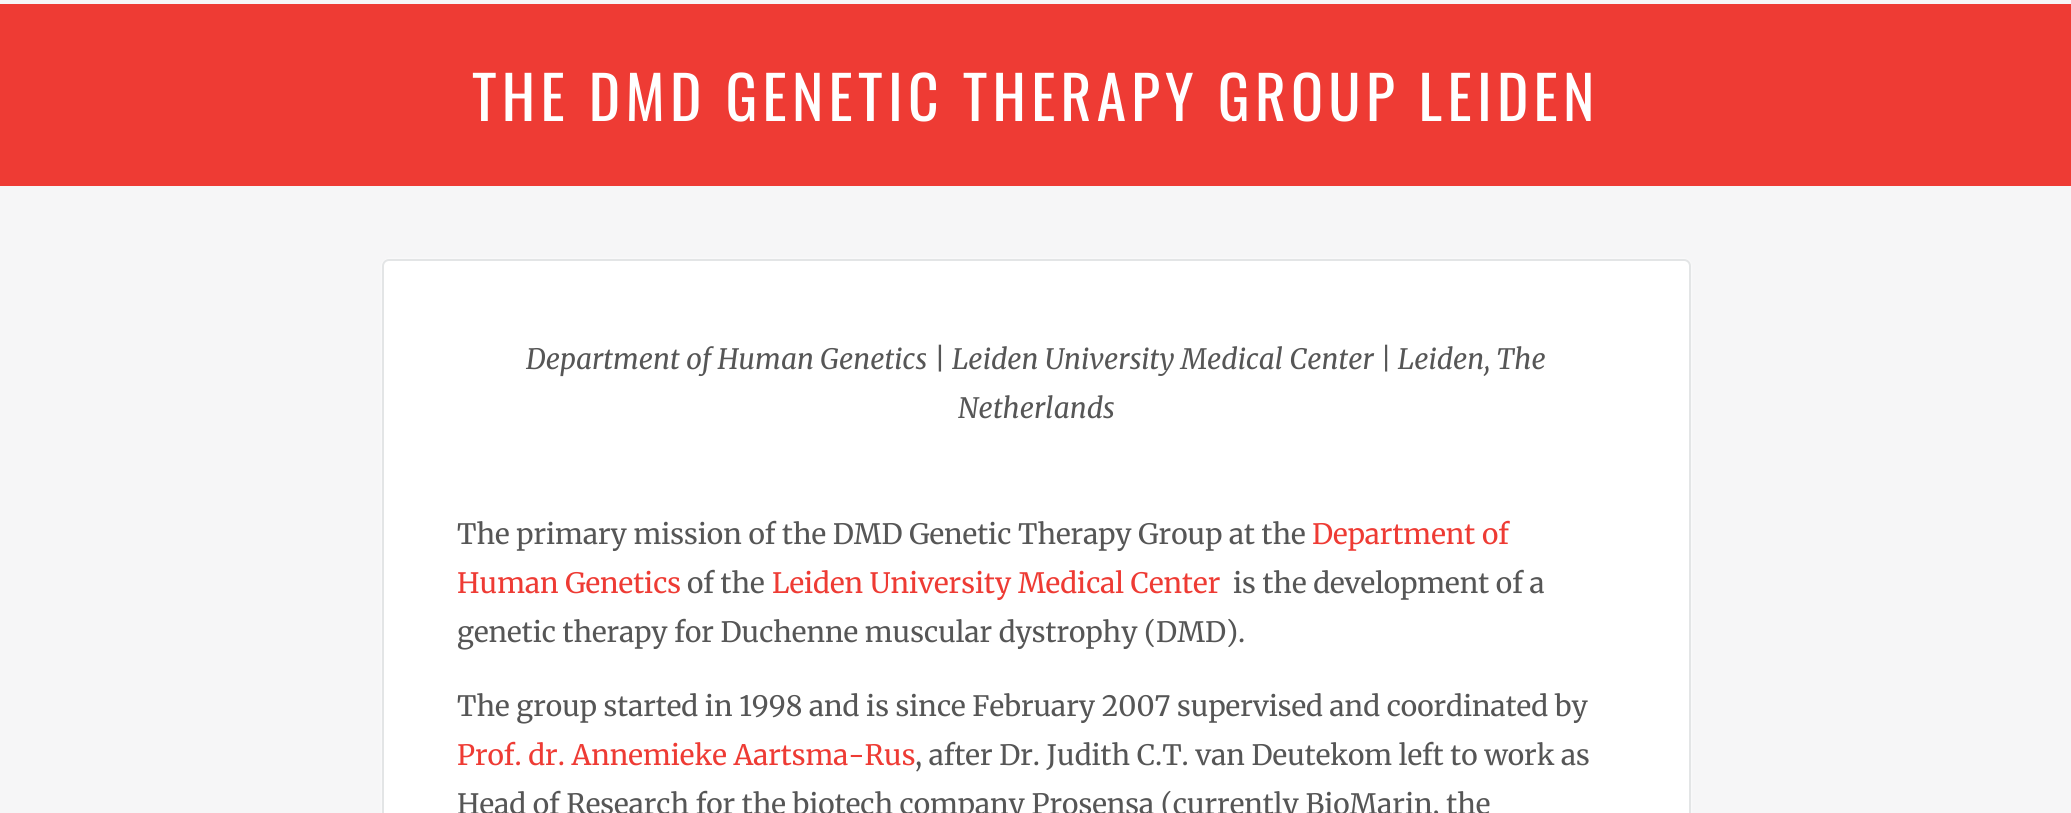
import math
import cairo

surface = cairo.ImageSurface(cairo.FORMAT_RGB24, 2071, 813)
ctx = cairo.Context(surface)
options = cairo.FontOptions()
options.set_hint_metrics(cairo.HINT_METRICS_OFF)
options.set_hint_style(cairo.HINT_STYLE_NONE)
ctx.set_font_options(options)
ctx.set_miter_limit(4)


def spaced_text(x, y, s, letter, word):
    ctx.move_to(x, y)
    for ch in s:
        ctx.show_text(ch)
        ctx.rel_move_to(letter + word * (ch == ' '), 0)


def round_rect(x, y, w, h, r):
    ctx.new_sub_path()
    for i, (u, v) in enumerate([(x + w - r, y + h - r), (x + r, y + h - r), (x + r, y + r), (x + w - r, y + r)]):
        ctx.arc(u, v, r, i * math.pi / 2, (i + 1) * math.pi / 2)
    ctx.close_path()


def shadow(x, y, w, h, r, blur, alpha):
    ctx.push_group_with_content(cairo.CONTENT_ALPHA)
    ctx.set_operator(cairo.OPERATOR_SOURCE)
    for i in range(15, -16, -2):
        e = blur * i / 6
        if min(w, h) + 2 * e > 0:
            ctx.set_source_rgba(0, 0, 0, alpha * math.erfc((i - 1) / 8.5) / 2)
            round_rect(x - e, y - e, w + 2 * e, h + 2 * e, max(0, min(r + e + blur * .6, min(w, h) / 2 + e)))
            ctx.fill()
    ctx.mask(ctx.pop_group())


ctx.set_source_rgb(0.961, 0.961, 0.965)
ctx.paint()
ctx.set_source_rgb(0.933, 0.231, 0.204)
ctx.rectangle(0, 4, 2071, 182)
ctx.fill()
ctx.select_font_face("Oswald")
ctx.set_font_size(59.5)
ctx.set_source_rgb(1, 1, 1)
spaced_text(472, 121, "THE DMD GENETIC THERAPY GROUP LEIDEN", 5.25, 0)
ctx.set_source_rgb(1, 1, 1)
shadow(382, 259, 1309, 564, 7, 1, 1)
ctx.set_source_rgb(1, 1, 1)
round_rect(383, 260, 1307, 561, 6)
ctx.fill_preserve()
ctx.set_source_rgb(0.89, 0.898, 0.902)
ctx.stroke()
ctx.select_font_face("Merriweather", cairo.FONT_SLANT_ITALIC)
ctx.set_font_size(28)
ctx.set_source_rgb(0.337, 0.337, 0.337)
ctx.move_to(526, 369)
ctx.show_text("Department of Human Genetics")
ctx.select_font_face("Merriweather")
ctx.move_to(934, 369)
ctx.show_text("|")
ctx.select_font_face("Merriweather", cairo.FONT_SLANT_ITALIC)
ctx.move_to(952, 369)
ctx.show_text("Leiden University Medical Center | Leiden, The")
ctx.move_to(958, 418)
ctx.show_text("Netherlands")
ctx.select_font_face("Merriweather")
ctx.move_to(457, 544)
ctx.show_text("The primary mission of the DMD Genetic Therapy Group at the")
ctx.set_source_rgb(0.933, 0.231, 0.204)
ctx.move_to(1312, 544)
ctx.show_text("Department of")
ctx.move_to(457, 593)
ctx.show_text("Human Genetics")
ctx.set_source_rgb(0.337, 0.337, 0.337)
ctx.move_to(687, 593)
ctx.show_text("of the")
ctx.set_source_rgb(0.933, 0.231, 0.204)
ctx.move_to(772, 593)
ctx.show_text("Leiden University Medical Center")
ctx.set_source_rgb(0.337, 0.337, 0.337)
ctx.move_to(1233, 593)
ctx.show_text("is the development of a")
ctx.move_to(457, 642)
ctx.show_text("genetic therapy for Duchenne muscular dystrophy (DMD).")
ctx.move_to(457, 716)
ctx.show_text("The group started in 1998 and is since February 2007 supervised and coordinated by")
ctx.set_source_rgb(0.933, 0.231, 0.204)
ctx.move_to(457, 765)
ctx.show_text("Prof. dr. Annemieke Aartsma-Rus")
ctx.set_source_rgb(0.337, 0.337, 0.337)
ctx.move_to(915, 765)
ctx.show_text(", after Dr. Judith C.T. van Deutekom left to work as")
ctx.move_to(457, 814)
ctx.show_text("Head of Research for the biotech company Prosensa (currently BioMarin, the")
surface.write_to_png("page.png")
